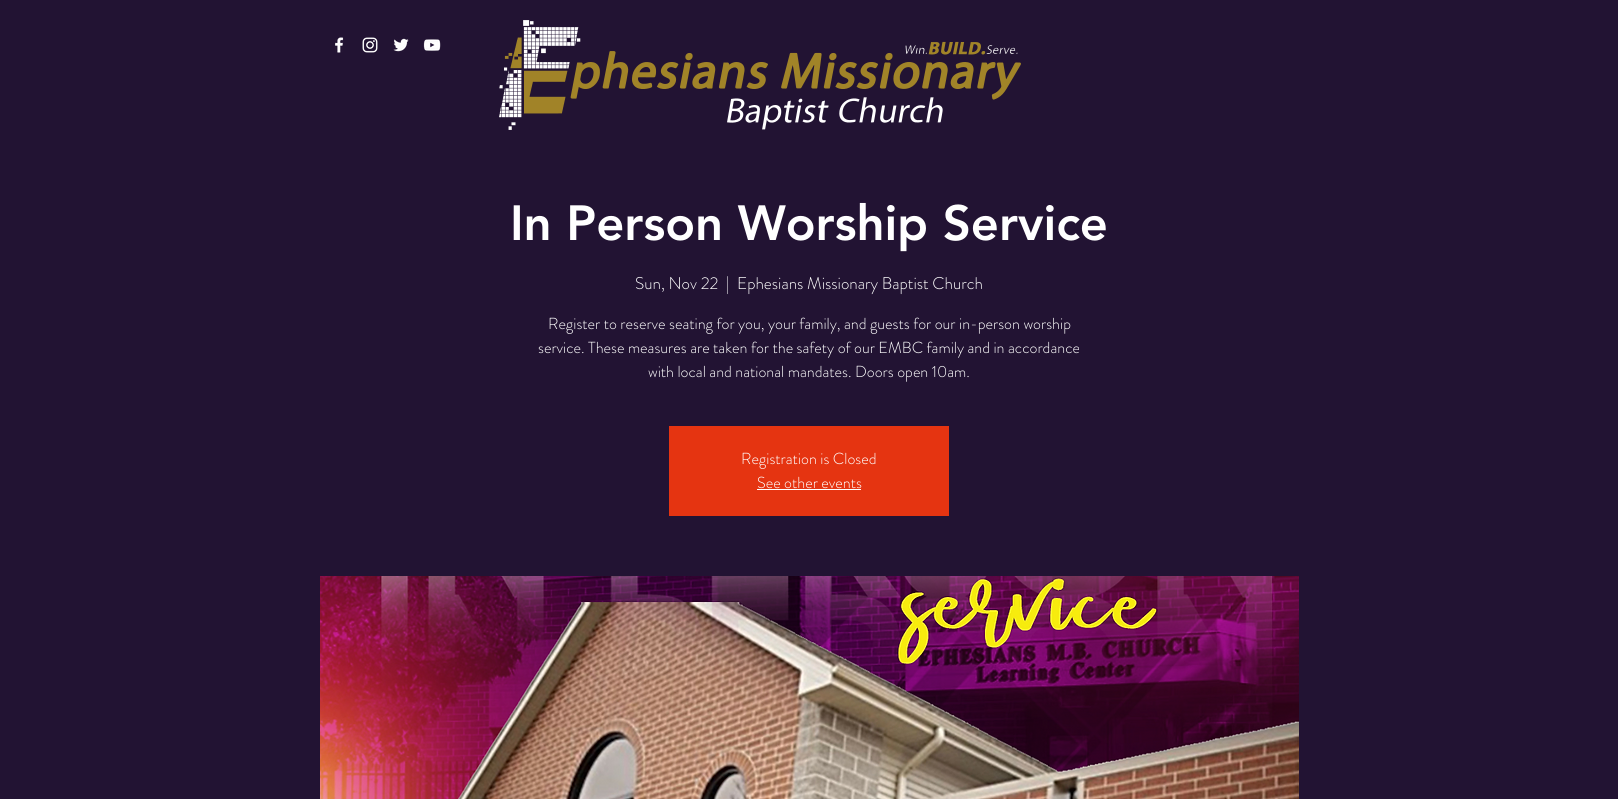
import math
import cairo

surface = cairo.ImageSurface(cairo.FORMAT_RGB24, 1618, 799)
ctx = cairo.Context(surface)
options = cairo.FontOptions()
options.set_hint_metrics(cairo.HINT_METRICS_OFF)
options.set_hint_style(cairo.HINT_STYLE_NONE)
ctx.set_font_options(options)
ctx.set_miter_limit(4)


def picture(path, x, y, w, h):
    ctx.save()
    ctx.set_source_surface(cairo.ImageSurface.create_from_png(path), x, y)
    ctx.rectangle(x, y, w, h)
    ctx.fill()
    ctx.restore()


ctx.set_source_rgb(0.133, 0.075, 0.2)
ctx.paint()
picture("img1.png", 335, 37, 9, 16)
picture("img2.png", 362, 37, 16, 16)
picture("img3.png", 393, 38, 16, 14)
picture("img4.png", 423, 39, 18, 12)
picture("img5.png", 499, 20, 522, 110)
ctx.select_font_face("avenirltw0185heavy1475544 Black")
ctx.set_font_size(49)
ctx.set_source_rgb(1, 1, 1)
ctx.move_to(510, 240)
ctx.show_text("In Person Worship Service")
ctx.select_font_face("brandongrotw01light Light")
ctx.set_font_size(17)
ctx.move_to(635, 289)
ctx.show_text("Sun, Nov 22")
ctx.move_to(726, 289)
ctx.show_text("|")
ctx.move_to(737, 289)
ctx.show_text("Ephesians Missionary Baptist Church")
ctx.set_font_size(16)
ctx.move_to(548, 329)
ctx.show_text("Register to reserve seating for you, your family, and guests for our in-person worship")
ctx.move_to(538, 353)
ctx.show_text("service. These measures are taken for the safety of our EMBC family and in accordance")
ctx.move_to(648, 377)
ctx.show_text("with local and national mandates. Doors open 10am.")
ctx.set_source_rgb(0.898, 0.204, 0.067)
ctx.rectangle(669, 426, 280, 90)
ctx.fill()
ctx.set_source_rgb(1, 1, 1)
ctx.move_to(741, 464)
ctx.show_text("Registration is Closed")
ctx.move_to(757, 488)
ctx.show_text("See other events")
ctx.rectangle(757, 489, 104, 1)
ctx.fill()
picture("img6.png", 320, 576, 979, 223)
surface.write_to_png("page.png")
